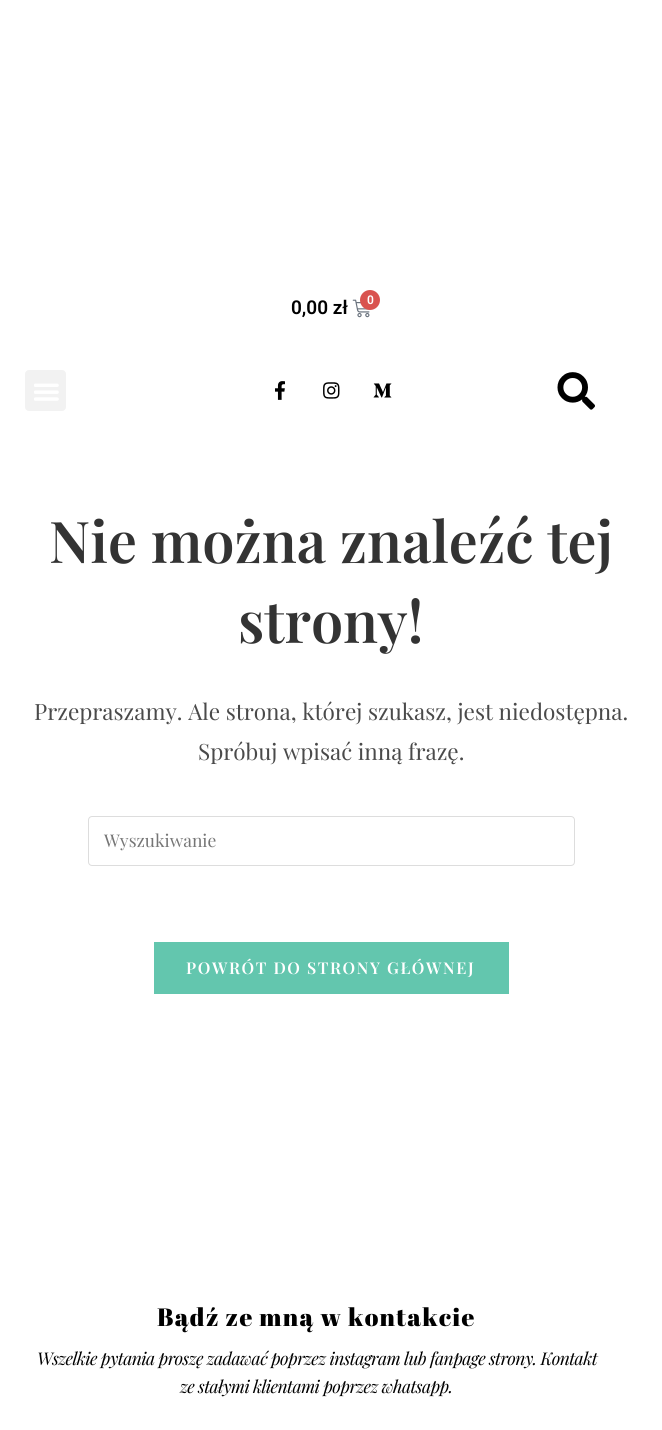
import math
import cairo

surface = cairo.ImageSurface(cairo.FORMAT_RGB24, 662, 1430)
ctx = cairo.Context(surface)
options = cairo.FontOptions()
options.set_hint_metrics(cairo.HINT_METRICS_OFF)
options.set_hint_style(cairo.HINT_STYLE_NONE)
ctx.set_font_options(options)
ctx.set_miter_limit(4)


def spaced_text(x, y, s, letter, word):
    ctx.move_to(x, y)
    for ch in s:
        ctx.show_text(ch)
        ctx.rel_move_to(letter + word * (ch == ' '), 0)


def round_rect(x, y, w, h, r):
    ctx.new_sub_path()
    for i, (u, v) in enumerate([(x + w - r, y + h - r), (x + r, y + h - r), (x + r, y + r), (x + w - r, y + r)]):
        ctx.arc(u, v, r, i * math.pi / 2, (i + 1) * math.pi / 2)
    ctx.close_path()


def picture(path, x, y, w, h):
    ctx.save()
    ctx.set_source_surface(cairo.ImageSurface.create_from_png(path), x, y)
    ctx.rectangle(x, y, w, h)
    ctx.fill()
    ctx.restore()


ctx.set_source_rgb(1, 1, 1)
ctx.paint()
ctx.select_font_face("Roboto SemiBold")
ctx.set_font_size(19)
ctx.set_source_rgb(0, 0, 0)
ctx.move_to(291, 314)
ctx.show_text("0,00 zł")
picture("img1.png", 352, 299, 18, 19)
ctx.set_source_rgb(0.851, 0.325, 0.31)
ctx.arc(370, 300, 10, 0, 2 * math.pi)
ctx.fill()
ctx.set_font_size(12)
ctx.set_source_rgb(1, 1, 1)
ctx.move_to(367, 304)
ctx.show_text("0")
ctx.set_source_rgb(0.949, 0.949, 0.949)
round_rect(25, 370, 41, 41, 4)
ctx.fill()
picture("img2.png", 34, 383, 25, 18)
picture("img3.png", 275, 381, 10, 19)
picture("img4.png", 323, 382, 17, 17)
picture("img5.png", 373, 383, 19, 15)
picture("img6.png", 557, 372, 38, 38)
ctx.select_font_face("Playfair Display SemiBold")
ctx.set_font_size(57.5)
ctx.set_source_rgb(0.2, 0.2, 0.2)
ctx.move_to(49, 563)
ctx.show_text("Nie można znaleźć tej")
ctx.move_to(238, 643)
ctx.show_text("strony!")
ctx.select_font_face("Playfair Display")
ctx.set_font_size(22.5)
ctx.set_source_rgb(0.29, 0.29, 0.29)
ctx.move_to(34, 720)
ctx.show_text("Przepraszamy. Ale strona, której szukasz, jest niedostępna.")
ctx.move_to(198, 760)
ctx.show_text("Spróbuj wpisać inną frazę.")
round_rect(88.5, 816.5, 486, 49, 3.5)
ctx.set_source_rgb(0.867, 0.867, 0.867)
ctx.set_line_width(1)
ctx.stroke()
ctx.set_font_size(17.5)
ctx.set_source_rgb(0.459, 0.459, 0.459)
ctx.move_to(104, 847)
ctx.show_text("Wyszukiwanie")
ctx.set_source_rgb(0.388, 0.776, 0.682)
ctx.rectangle(154, 942, 355, 52)
ctx.fill()
ctx.select_font_face("Playfair Display SemiBold")
ctx.set_font_size(16.25)
ctx.set_source_rgb(1, 1, 1)
spaced_text(186, 974, "POWRÓT DO STRONY GŁÓWNEJ", 1.6, 0)
ctx.select_font_face("Abril Fatface")
ctx.set_font_size(25)
ctx.set_source_rgb(0, 0, 0)
spaced_text(157, 1326, "Bądź ze mną w kontakcie", 1.25, 0)
ctx.select_font_face("Playfair Display", cairo.FONT_SLANT_ITALIC)
ctx.set_font_size(17.5)
spaced_text(37, 1365, "Wszelkie pytania proszę zadawać poprzez instagram lub fanpage strony. Kontakt", -0.55, 0)
spaced_text(180, 1393, "ze stałymi klientami poprzez whatsapp.", -0.55, 0)
surface.write_to_png("page.png")
